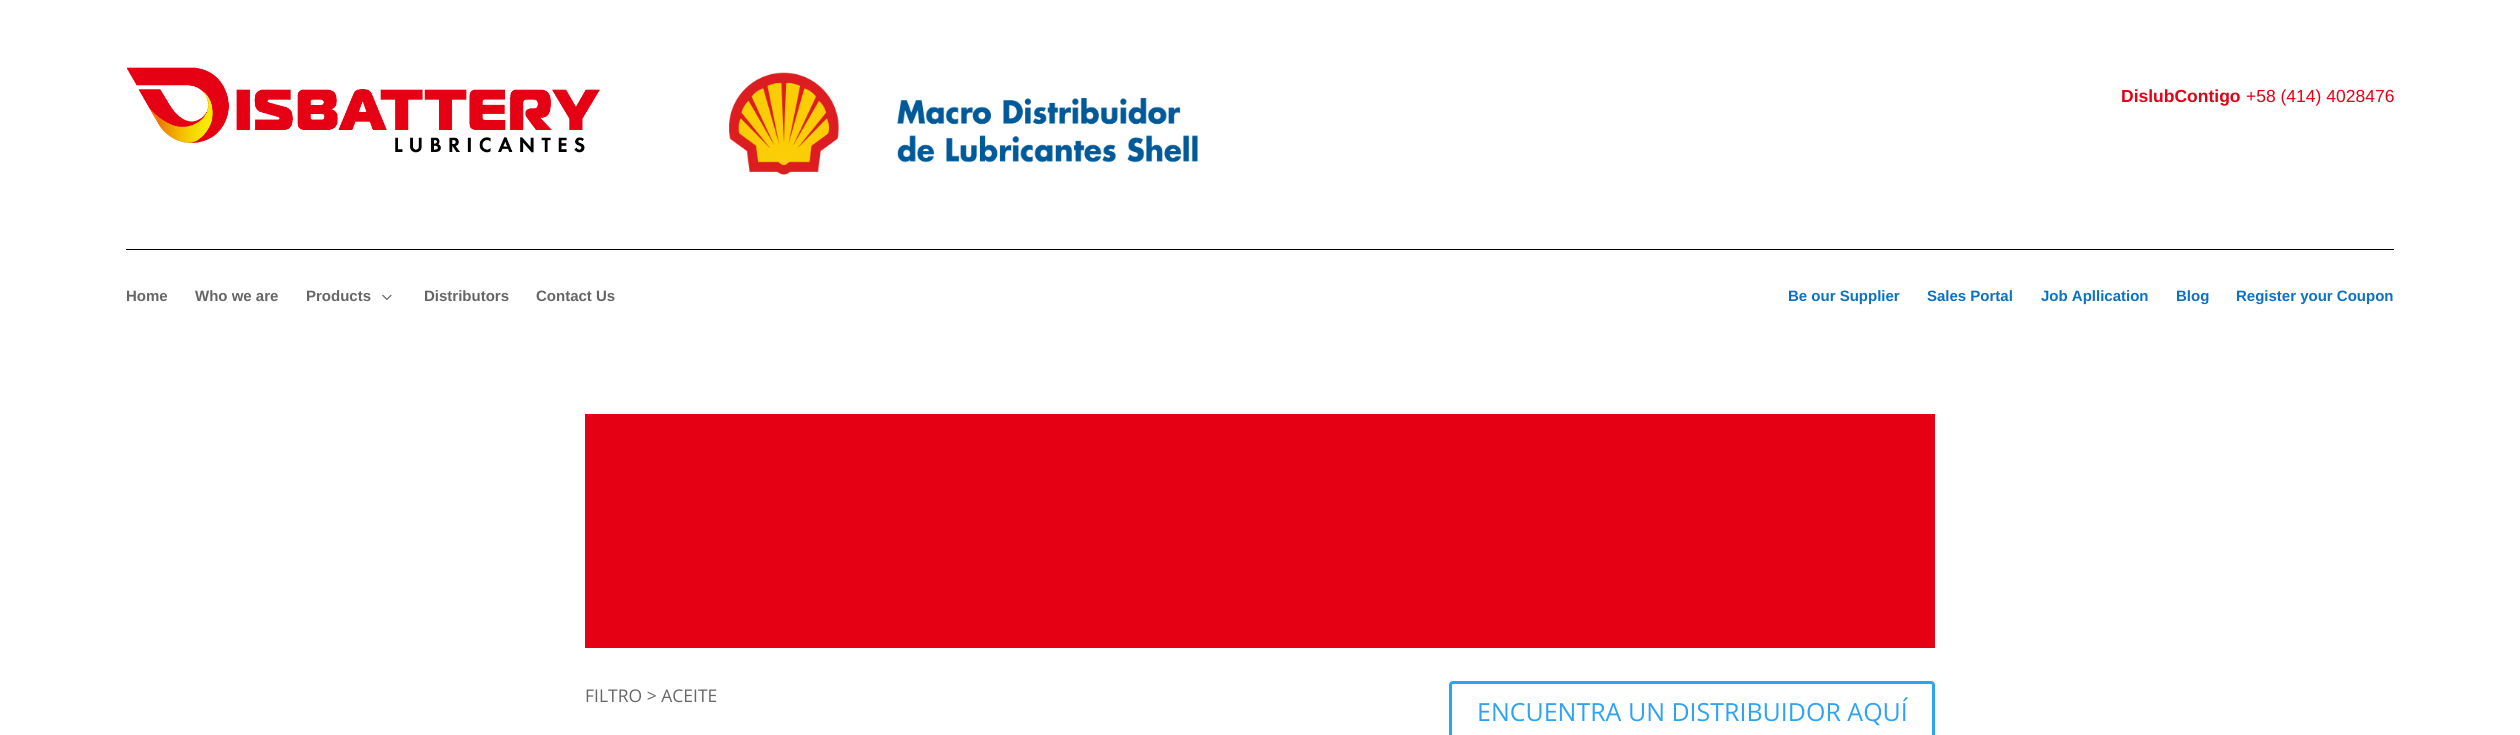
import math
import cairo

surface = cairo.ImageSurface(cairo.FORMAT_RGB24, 2520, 735)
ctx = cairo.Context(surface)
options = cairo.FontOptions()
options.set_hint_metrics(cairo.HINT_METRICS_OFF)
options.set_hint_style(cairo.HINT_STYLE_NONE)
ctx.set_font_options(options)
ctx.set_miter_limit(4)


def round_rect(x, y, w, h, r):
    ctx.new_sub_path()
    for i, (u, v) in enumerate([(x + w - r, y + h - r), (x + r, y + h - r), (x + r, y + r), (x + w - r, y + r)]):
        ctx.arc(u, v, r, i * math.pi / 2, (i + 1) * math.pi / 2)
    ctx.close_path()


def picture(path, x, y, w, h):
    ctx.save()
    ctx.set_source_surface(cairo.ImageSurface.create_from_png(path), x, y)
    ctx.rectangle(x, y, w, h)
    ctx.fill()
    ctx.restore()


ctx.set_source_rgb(1, 1, 1)
ctx.paint()
picture("img1.png", 126, 67, 474, 86)
picture("img2.png", 729, 72, 469, 103)
ctx.select_font_face("Liberation Sans", cairo.FONT_SLANT_NORMAL, cairo.FONT_WEIGHT_BOLD)
ctx.set_font_size(17.5)
ctx.set_source_rgb(0.898, 0, 0.075)
ctx.move_to(2121, 102)
ctx.show_text("DislubContigo")
ctx.select_font_face("Liberation Sans")
ctx.move_to(2246, 102)
ctx.show_text("+58 (414) 4028476")
ctx.set_source_rgb(0, 0, 0)
ctx.rectangle(126, 249, 2268, 1)
ctx.fill()
ctx.select_font_face("Liberation Sans", cairo.FONT_SLANT_NORMAL, cairo.FONT_WEIGHT_BOLD)
ctx.set_font_size(15)
ctx.set_source_rgb(0.4, 0.4, 0.4)
ctx.move_to(126, 301)
ctx.show_text("Home")
ctx.move_to(195, 301)
ctx.show_text("Who we are")
ctx.move_to(306, 301)
ctx.show_text("Products")
picture("img3.png", 382, 294, 10, 6)
ctx.move_to(424, 301)
ctx.show_text("Distributors")
ctx.move_to(536, 301)
ctx.show_text("Contact Us")
ctx.set_source_rgb(0.047, 0.443, 0.765)
ctx.move_to(1788, 301)
ctx.show_text("Be our Supplier")
ctx.move_to(1927, 301)
ctx.show_text("Sales Portal")
ctx.move_to(2041, 301)
ctx.show_text("Job Apllication")
ctx.move_to(2176, 301)
ctx.show_text("Blog")
ctx.move_to(2236, 301)
ctx.show_text("Register your Coupon")
ctx.set_source_rgb(0.898, 0, 0.075)
ctx.rectangle(585, 414, 1350, 234)
ctx.fill()
ctx.select_font_face("Open Sans")
ctx.set_font_size(17.5)
ctx.set_source_rgb(0.4, 0.4, 0.4)
ctx.move_to(585, 702)
ctx.show_text("FILTRO > ACEITE")
round_rect(1450.5, 682.5, 483, 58, 2.5)
ctx.set_source_rgb(0.18, 0.639, 0.949)
ctx.set_line_width(3)
ctx.stroke()
ctx.set_font_size(25)
ctx.move_to(1477, 721)
ctx.show_text("ENCUENTRA UN DISTRIBUIDOR AQUÍ")
surface.write_to_png("page.png")
